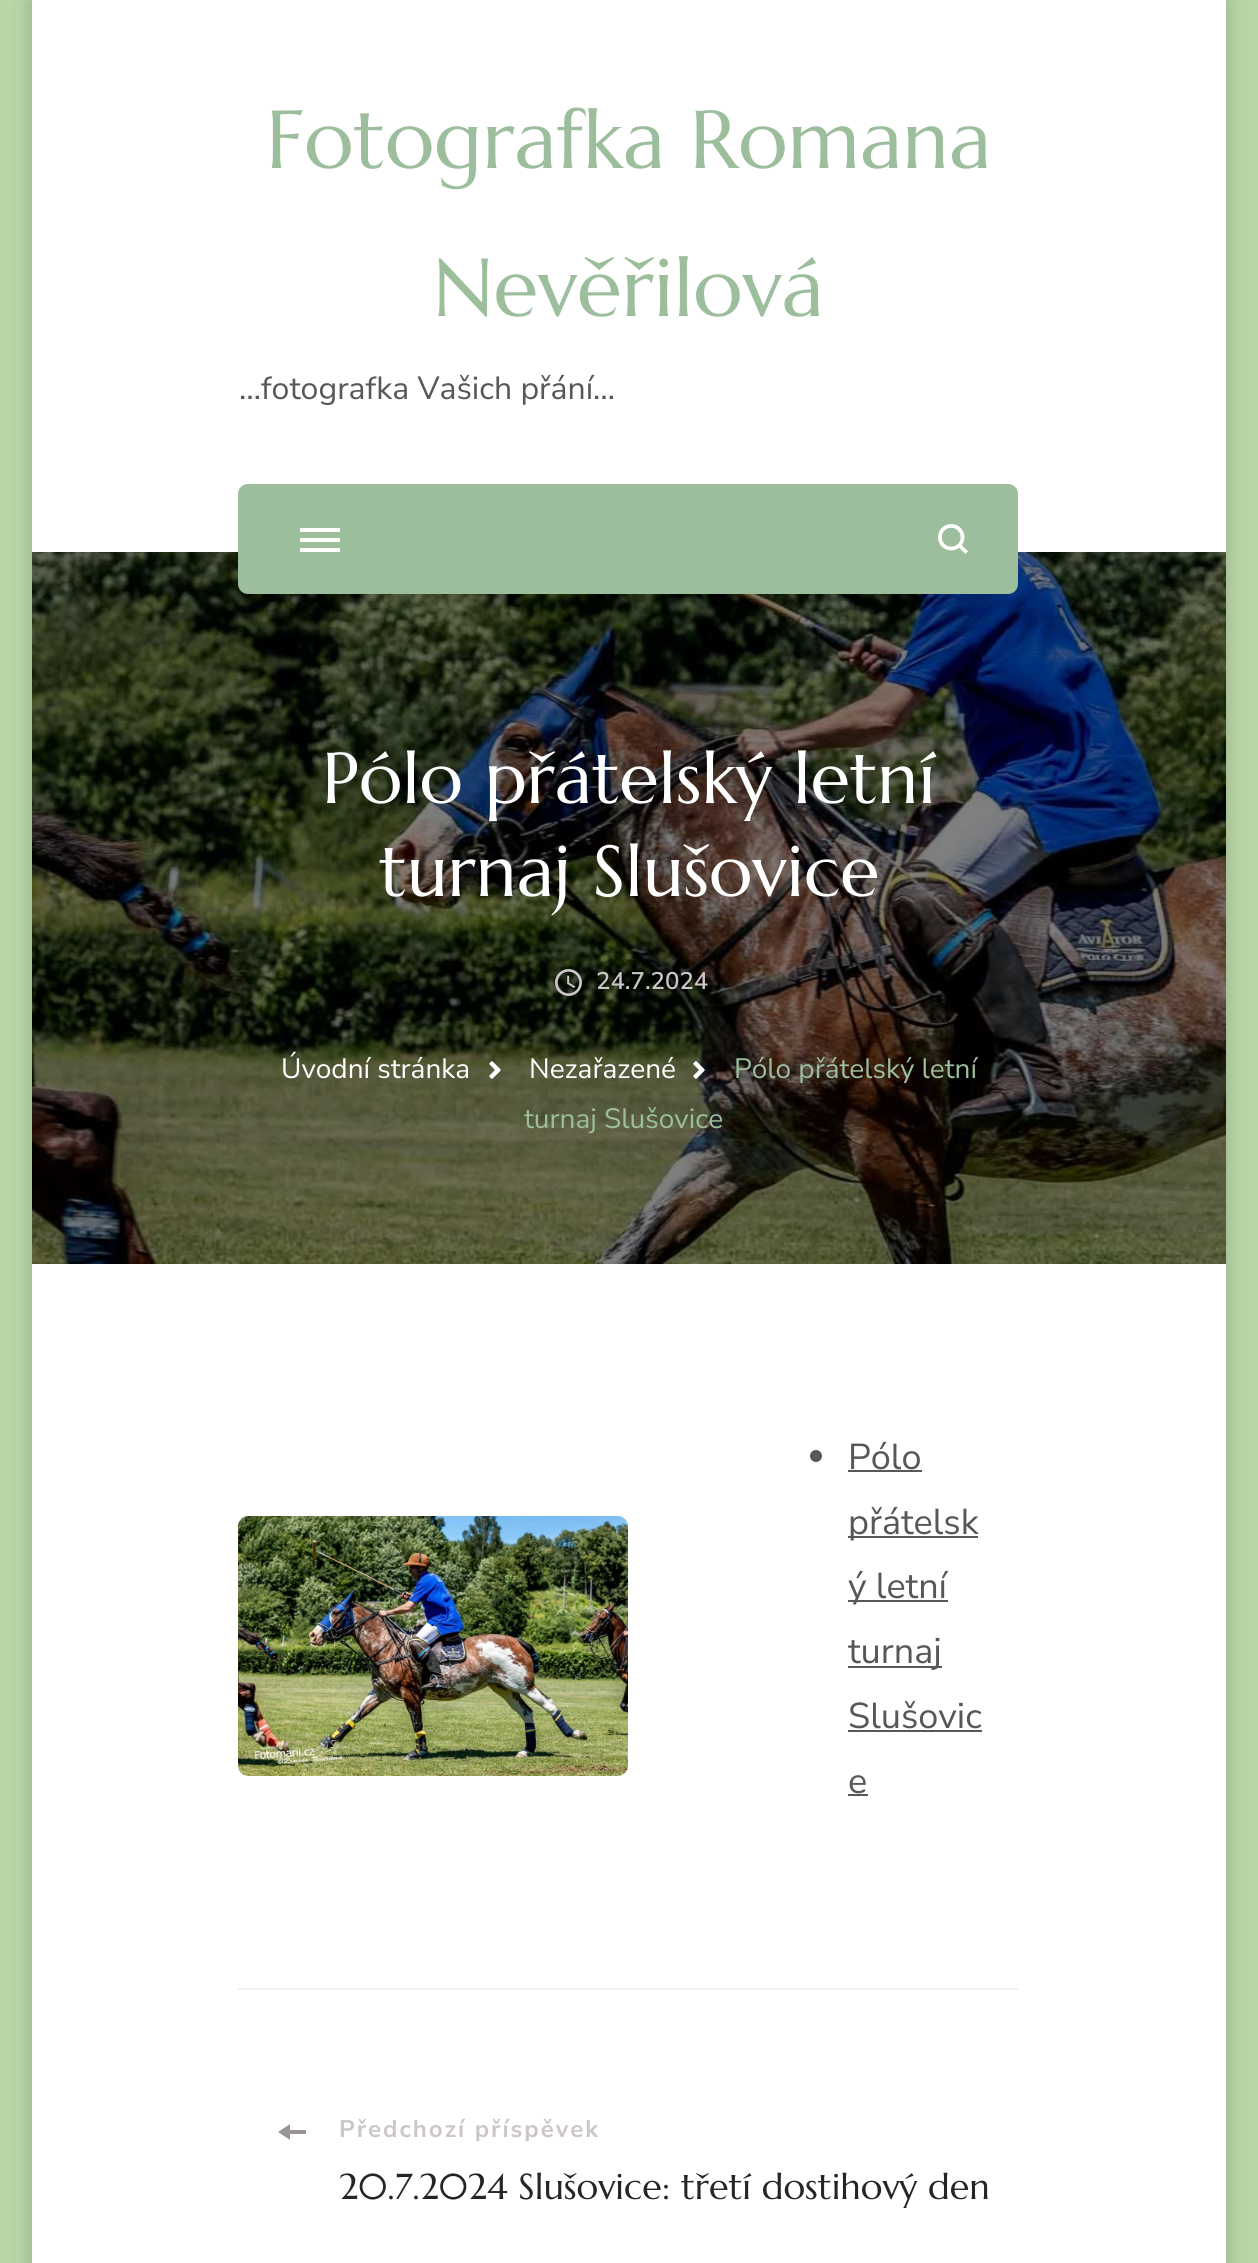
import math
import cairo

surface = cairo.ImageSurface(cairo.FORMAT_RGB24, 1258, 2263)
ctx = cairo.Context(surface)
options = cairo.FontOptions()
options.set_hint_metrics(cairo.HINT_METRICS_OFF)
options.set_hint_style(cairo.HINT_STYLE_NONE)
ctx.set_font_options(options)
ctx.set_miter_limit(4)


def spaced_text(x, y, s, letter, word):
    ctx.move_to(x, y)
    for ch in s:
        ctx.show_text(ch)
        ctx.rel_move_to(letter + word * (ch == ' '), 0)


def round_rect(x, y, w, h, r):
    ctx.new_sub_path()
    for i, (u, v) in enumerate([(x + w - r, y + h - r), (x + r, y + h - r), (x + r, y + r), (x + w - r, y + r)]):
        ctx.arc(u, v, r, i * math.pi / 2, (i + 1) * math.pi / 2)
    ctx.close_path()


def shadow(x, y, w, h, r, blur, alpha):
    ctx.push_group_with_content(cairo.CONTENT_ALPHA)
    ctx.set_operator(cairo.OPERATOR_SOURCE)
    for i in range(15, -16, -2):
        e = blur * i / 6
        if min(w, h) + 2 * e > 0:
            ctx.set_source_rgba(0, 0, 0, alpha * math.erfc((i - 1) / 8.5) / 2)
            round_rect(x - e, y - e, w + 2 * e, h + 2 * e, max(0, min(r + e + blur * .6, min(w, h) / 2 + e)))
            ctx.fill()
    ctx.mask(ctx.pop_group())


def picture(path, x, y, w, h):
    ctx.save()
    ctx.set_source_surface(cairo.ImageSurface.create_from_png(path), x, y)
    ctx.rectangle(x, y, w, h)
    ctx.fill()
    ctx.restore()


ctx.set_source_rgb(0.725, 0.839, 0.655)
ctx.paint()
ctx.set_source_rgb(0, 0, 0)
shadow(32, 0, 1194, 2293, 0, 10, 0.2)
ctx.set_source_rgb(1, 1, 1)
ctx.rectangle(32, 0, 1194, 2263)
ctx.fill()
ctx.select_font_face("Marcellus")
ctx.set_font_size(82)
ctx.set_source_rgb(0.612, 0.745, 0.612)
ctx.move_to(266, 168)
ctx.show_text("Fotografka Romana")
ctx.move_to(433, 316)
ctx.show_text("Nevěřilová")
ctx.select_font_face("Nunito Sans")
ctx.set_font_size(32)
ctx.set_source_rgb(0.345, 0.337, 0.337)
ctx.move_to(239, 399)
ctx.show_text("…fotografka Vašich přání…")
picture("img2.png", 32, 552, 1194, 712)
ctx.set_source_rgb(0.612, 0.745, 0.612)
round_rect(238, 484, 780, 110, 10)
ctx.fill()
ctx.set_source_rgb(1, 1, 1)
ctx.rectangle(300, 528, 40, 4)
ctx.fill()
ctx.rectangle(300, 538, 40, 4)
ctx.fill()
ctx.rectangle(300, 548, 40, 4)
ctx.fill()
picture("img1.png", 938, 524, 30, 30)
ctx.select_font_face("Marcellus")
ctx.set_font_size(72)
ctx.move_to(322, 803)
ctx.show_text("Pólo přátelský letní")
ctx.move_to(379, 896)
ctx.show_text("turnaj Slušovice")
picture("img3.png", 555, 969, 27, 27)
ctx.select_font_face("Nunito Sans SemiBold")
ctx.set_font_size(24)
ctx.set_source_rgb(0.8, 0.776, 0.784)
ctx.move_to(596, 989)
ctx.show_text("24.7.2024")
ctx.select_font_face("Nunito Sans")
ctx.set_font_size(28)
ctx.set_source_rgb(1, 1, 1)
ctx.move_to(281, 1078)
ctx.show_text("Úvodní stránka")
picture("img4.png", 489, 1061, 12, 18)
ctx.move_to(529, 1078)
ctx.show_text("Nezařazené")
picture("img5.png", 693, 1061, 12, 18)
ctx.set_source_rgb(0.612, 0.745, 0.612)
ctx.move_to(734, 1078)
ctx.show_text("Pólo přátelský letní")
ctx.move_to(524, 1128)
ctx.show_text("turnaj Slušovice")
picture("img6.png", 238, 1516, 390, 260)
ctx.set_source_rgb(0.345, 0.337, 0.337)
ctx.arc(816, 1456, 6, 0, 2 * math.pi)
ctx.fill()
ctx.set_font_size(36)
ctx.move_to(848, 1469)
ctx.show_text("Pólo")
ctx.rectangle(848, 1470, 74, 2)
ctx.fill()
ctx.rectangle(848, 1536, 130, 2)
ctx.fill()
ctx.move_to(848, 1534)
ctx.show_text("přátelsk")
ctx.rectangle(848, 1600, 100, 2)
ctx.fill()
ctx.move_to(848, 1598)
ctx.show_text("ý letní")
ctx.rectangle(848, 1666, 94, 2)
ctx.fill()
ctx.move_to(848, 1663)
ctx.show_text("turnaj")
ctx.move_to(848, 1728)
ctx.show_text("Slušovic")
ctx.rectangle(848, 1730, 134, 2)
ctx.fill()
ctx.move_to(848, 1793)
ctx.show_text("e")
ctx.rectangle(848, 1794, 20, 2)
ctx.fill()
ctx.set_source_rgb(0.941, 0.941, 0.941)
ctx.rectangle(238, 1988, 780, 2)
ctx.fill()
ctx.set_source_rgb(0.6, 0.584, 0.588)
ctx.new_path()
ctx.move_to(290, 2134)
ctx.line_to(306, 2134)
ctx.line_to(306, 2130)
ctx.line_to(290, 2130)
ctx.line_to(290, 2124)
ctx.line_to(278, 2132)
ctx.line_to(290, 2140)
ctx.close_path()
ctx.fill()
ctx.select_font_face("Nunito Sans", cairo.FONT_SLANT_NORMAL, cairo.FONT_WEIGHT_BOLD)
ctx.set_font_size(24)
ctx.set_source_rgb(0.8, 0.776, 0.784)
spaced_text(339, 2137, "Předchozí příspěvek", 2, 0)
ctx.select_font_face("Marcellus")
ctx.set_font_size(36)
ctx.set_source_rgb(0.149, 0.145, 0.145)
ctx.move_to(339, 2199)
ctx.show_text("20.7.2024 Slušovice: třetí dostihový den")
surface.write_to_png("page.png")
